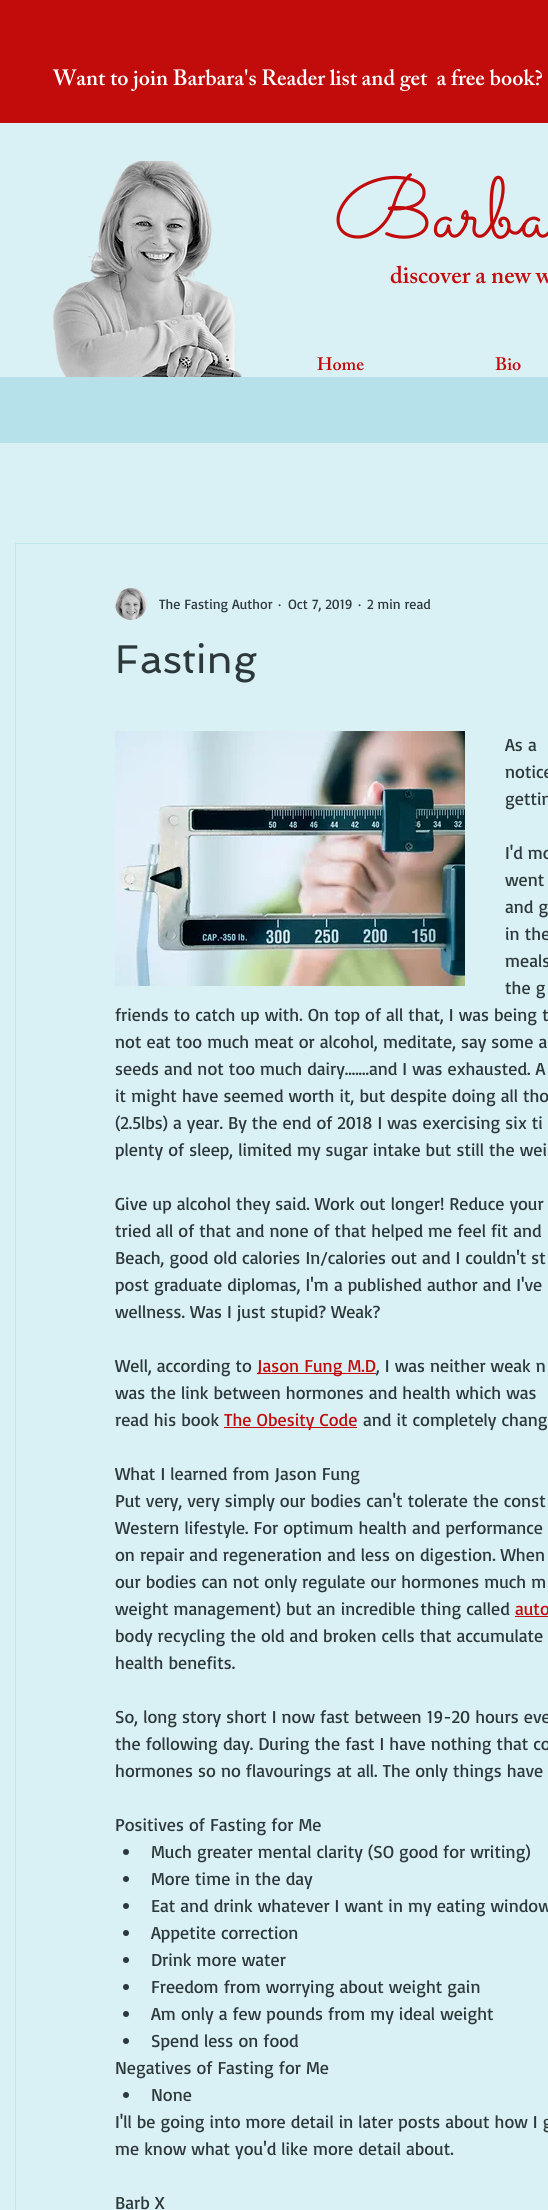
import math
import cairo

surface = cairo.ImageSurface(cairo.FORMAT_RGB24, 548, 2210)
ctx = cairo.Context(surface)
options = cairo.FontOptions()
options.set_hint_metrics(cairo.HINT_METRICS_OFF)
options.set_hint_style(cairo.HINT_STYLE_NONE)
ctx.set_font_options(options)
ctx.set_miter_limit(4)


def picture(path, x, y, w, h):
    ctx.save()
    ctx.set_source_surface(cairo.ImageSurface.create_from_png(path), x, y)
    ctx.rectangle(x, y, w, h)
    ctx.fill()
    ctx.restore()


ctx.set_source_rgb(0.714, 0.882, 0.918)
ctx.paint()
ctx.set_source_rgb(0.761, 0.047, 0.047)
ctx.rectangle(0, 0, 548, 123)
ctx.fill()
ctx.select_font_face("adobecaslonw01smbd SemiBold")
ctx.set_font_size(22)
ctx.set_source_rgb(1, 1, 1)
ctx.move_to(53, 85)
ctx.show_text("Want to join Barbara's Reader list and get  a free book?")
ctx.set_source_rgb(0.851, 0.941, 0.957)
ctx.rectangle(0, 123, 548, 254)
ctx.fill()
picture("img1.png", 53, 161, 198, 216)
ctx.select_font_face("Sacramento")
ctx.set_font_size(86)
ctx.set_source_rgb(0.761, 0.047, 0.047)
ctx.move_to(334, 237)
ctx.show_text("Barba")
ctx.select_font_face("adobecaslonw01smbd SemiBold")
ctx.set_font_size(24)
ctx.move_to(390, 283)
ctx.show_text("discover a new w")
ctx.set_font_size(18)
ctx.move_to(317, 370)
ctx.show_text("Home")
ctx.move_to(495, 370)
ctx.show_text("Bio")
ctx.set_source_rgb(0.851, 0.941, 0.957)
ctx.rectangle(0, 443, 548, 1767)
ctx.fill()
ctx.rectangle(15.5, 543.5, 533, 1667)
ctx.set_source_rgb(0.749, 0.898, 0.929)
ctx.set_line_width(1)
ctx.stroke()
picture("img2.png", 115, 588, 32, 32)
ctx.select_font_face("Basic")
ctx.set_font_size(14)
ctx.set_source_rgb(0.176, 0.22, 0.227)
ctx.move_to(159, 609)
ctx.show_text("The Fasting Author")
ctx.move_to(278, 609)
ctx.show_text("·")
ctx.move_to(288, 609)
ctx.show_text("Oct 7, 2019")
ctx.move_to(358, 609)
ctx.show_text("·")
ctx.move_to(367, 609)
ctx.show_text("2 min read")
ctx.select_font_face("Spinnaker")
ctx.set_font_size(40)
ctx.move_to(115, 673)
ctx.show_text("Fasting")
picture("img3.png", 115, 731, 350, 255)
ctx.select_font_face("Basic")
ctx.set_font_size(18)
ctx.move_to(505, 751)
ctx.show_text("As a")
ctx.move_to(505, 778)
ctx.show_text("notice")
ctx.move_to(505, 805)
ctx.show_text("gettin")
ctx.move_to(505, 859)
ctx.show_text("I'd mo")
ctx.move_to(505, 886)
ctx.show_text("went")
ctx.move_to(505, 913)
ctx.show_text("and g")
ctx.move_to(505, 940)
ctx.show_text("in the")
ctx.move_to(505, 967)
ctx.show_text("meals")
ctx.move_to(505, 994)
ctx.show_text("the g")
ctx.move_to(115, 1021)
ctx.show_text("friends to catch up with. On top of all that, I was being t")
ctx.move_to(115, 1048)
ctx.show_text("not eat too much meat or alcohol, meditate, say some a")
ctx.move_to(115, 1075)
ctx.show_text("seeds and not too much dairy.......and I was exhausted. A")
ctx.move_to(115, 1102)
ctx.show_text("it might have seemed worth it, but despite doing all tho")
ctx.move_to(115, 1129)
ctx.show_text("(2.5lbs) a year. By the end of 2018 I was exercising six ti")
ctx.move_to(115, 1156)
ctx.show_text("plenty of sleep, limited my sugar intake but still the wei")
ctx.move_to(115, 1210)
ctx.show_text("Give up alcohol they said. Work out longer! Reduce your")
ctx.move_to(115, 1237)
ctx.show_text("tried all of that and none of that helped me feel fit and")
ctx.move_to(115, 1264)
ctx.show_text("Beach, good old calories In/calories out and I couldn't st")
ctx.move_to(115, 1291)
ctx.show_text("post graduate diplomas, I'm a published author and I've")
ctx.move_to(115, 1318)
ctx.show_text("wellness. Was I just stupid? Weak?")
ctx.move_to(115, 1372)
ctx.show_text("Well, according to")
ctx.set_source_rgb(0.761, 0.047, 0.047)
ctx.rectangle(257, 1373, 119, 1)
ctx.fill()
ctx.move_to(257, 1372)
ctx.show_text("Jason Fung M.D")
ctx.set_source_rgb(0.176, 0.22, 0.227)
ctx.move_to(376, 1372)
ctx.show_text(", I was neither weak n")
ctx.move_to(115, 1399)
ctx.show_text("was the link between hormones and health which was")
ctx.move_to(115, 1426)
ctx.show_text("read his book")
ctx.set_source_rgb(0.761, 0.047, 0.047)
ctx.rectangle(224, 1427, 133, 1)
ctx.fill()
ctx.move_to(224, 1426)
ctx.show_text("The Obesity Code")
ctx.set_source_rgb(0.176, 0.22, 0.227)
ctx.move_to(363, 1426)
ctx.show_text("and it completely chang")
ctx.move_to(115, 1480)
ctx.show_text("What I learned from Jason Fung")
ctx.move_to(115, 1507)
ctx.show_text("Put very, very simply our bodies can't tolerate the const")
ctx.move_to(115, 1534)
ctx.show_text("Western lifestyle. For optimum health and performance")
ctx.move_to(115, 1561)
ctx.show_text("on repair and regeneration and less on digestion. When")
ctx.move_to(115, 1588)
ctx.show_text("our bodies can not only regulate our hormones much m")
ctx.move_to(115, 1615)
ctx.show_text("weight management) but an incredible thing called")
ctx.set_source_rgb(0.761, 0.047, 0.047)
ctx.move_to(515, 1615)
ctx.show_text("auto")
ctx.rectangle(515, 1616, 33, 1)
ctx.fill()
ctx.set_source_rgb(0.176, 0.22, 0.227)
ctx.move_to(115, 1642)
ctx.show_text("body recycling the old and broken cells that accumulate")
ctx.move_to(115, 1669)
ctx.show_text("health benefits.")
ctx.move_to(115, 1723)
ctx.show_text("So, long story short I now fast between 19-20 hours eve")
ctx.move_to(115, 1750)
ctx.show_text("the following day. During the fast I have nothing that co")
ctx.move_to(115, 1777)
ctx.show_text("hormones so no flavourings at all. The only things have")
ctx.move_to(115, 1831)
ctx.show_text("Positives of Fasting for Me")
ctx.new_path()
ctx.arc(126, 1852, 3, 0, 2 * math.pi)
ctx.fill()
ctx.move_to(151, 1858)
ctx.show_text("Much greater mental clarity (SO good for writing)")
ctx.new_path()
ctx.arc(126, 1879, 3, 0, 2 * math.pi)
ctx.fill()
ctx.move_to(151, 1885)
ctx.show_text("More time in the day")
ctx.new_path()
ctx.arc(126, 1906, 3, 0, 2 * math.pi)
ctx.fill()
ctx.move_to(151, 1912)
ctx.show_text("Eat and drink whatever I want in my eating window")
ctx.new_path()
ctx.arc(126, 1933, 3, 0, 2 * math.pi)
ctx.fill()
ctx.move_to(151, 1939)
ctx.show_text("Appetite correction")
ctx.new_path()
ctx.arc(126, 1960, 3, 0, 2 * math.pi)
ctx.fill()
ctx.move_to(151, 1966)
ctx.show_text("Drink more water")
ctx.new_path()
ctx.arc(126, 1987, 3, 0, 2 * math.pi)
ctx.fill()
ctx.move_to(151, 1993)
ctx.show_text("Freedom from worrying about weight gain")
ctx.new_path()
ctx.arc(126, 2014, 3, 0, 2 * math.pi)
ctx.fill()
ctx.move_to(151, 2020)
ctx.show_text("Am only a few pounds from my ideal weight")
ctx.new_path()
ctx.arc(126, 2041, 3, 0, 2 * math.pi)
ctx.fill()
ctx.move_to(151, 2047)
ctx.show_text("Spend less on food")
ctx.move_to(115, 2074)
ctx.show_text("Negatives of Fasting for Me")
ctx.new_path()
ctx.arc(126, 2095, 3, 0, 2 * math.pi)
ctx.fill()
ctx.move_to(151, 2101)
ctx.show_text("None")
ctx.move_to(115, 2128)
ctx.show_text("I'll be going into more detail in later posts about how I g")
ctx.move_to(115, 2155)
ctx.show_text("me know what you'd like more detail about.")
ctx.move_to(115, 2209)
ctx.show_text("Barb X")
surface.write_to_png("page.png")
